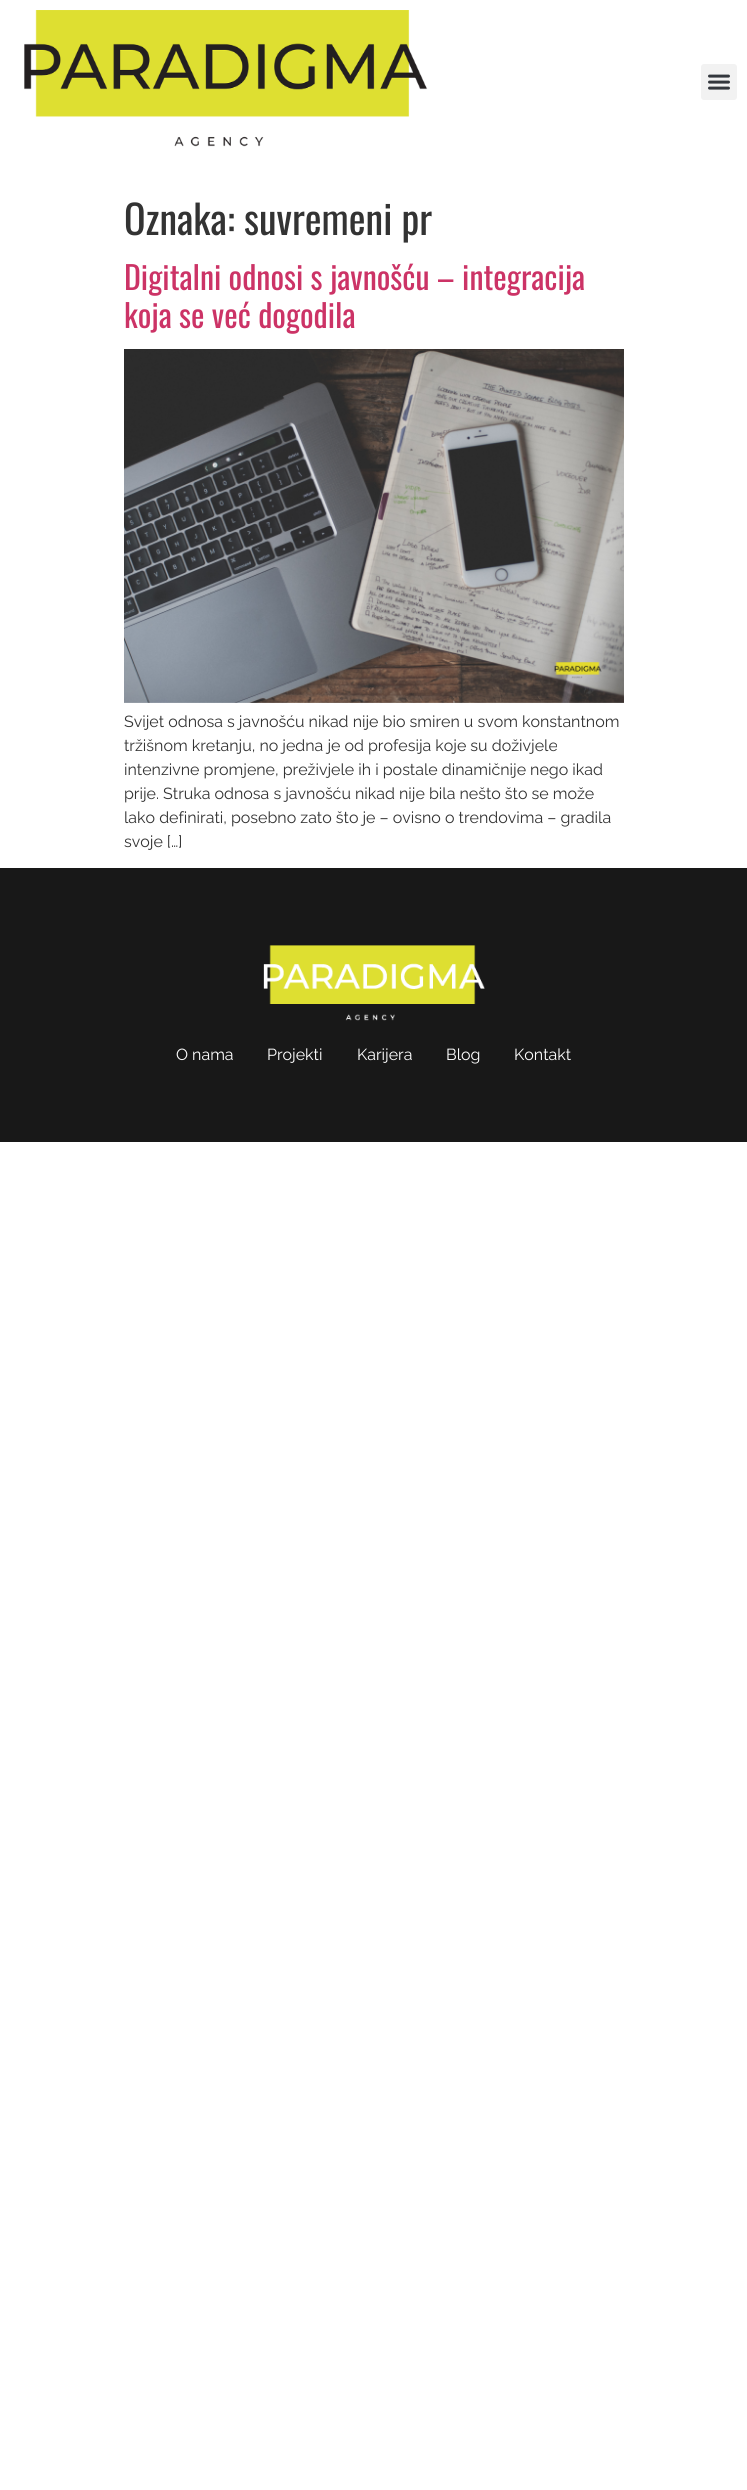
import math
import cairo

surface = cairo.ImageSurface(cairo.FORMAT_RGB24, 747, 2490)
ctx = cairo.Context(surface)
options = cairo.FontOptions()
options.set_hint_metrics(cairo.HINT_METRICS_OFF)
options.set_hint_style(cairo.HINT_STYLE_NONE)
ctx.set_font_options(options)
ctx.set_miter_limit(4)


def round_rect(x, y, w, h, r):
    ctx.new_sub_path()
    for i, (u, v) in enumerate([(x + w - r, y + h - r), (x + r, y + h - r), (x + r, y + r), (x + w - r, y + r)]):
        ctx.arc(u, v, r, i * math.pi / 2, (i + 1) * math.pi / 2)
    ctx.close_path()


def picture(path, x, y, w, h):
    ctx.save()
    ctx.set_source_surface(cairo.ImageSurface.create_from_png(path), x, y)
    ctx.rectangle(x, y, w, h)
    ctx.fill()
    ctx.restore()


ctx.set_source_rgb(1, 1, 1)
ctx.paint()
picture("img1.png", 24, 10, 404, 137)
ctx.set_source_rgb(0.949, 0.949, 0.949)
round_rect(701, 64, 36, 36, 3)
ctx.fill()
picture("img2.png", 708, 74, 22, 16)
ctx.select_font_face("Oswald")
ctx.set_font_size(40)
ctx.set_source_rgb(0.2, 0.2, 0.2)
ctx.move_to(124, 235)
ctx.show_text("Oznaka: suvremeni pr")
ctx.set_font_size(32)
ctx.set_source_rgb(0.8, 0.2, 0.4)
ctx.move_to(124, 290)
ctx.show_text("Digitalni odnosi s javnošću – integracija")
ctx.move_to(124, 328)
ctx.show_text("koja se već dogodila")
picture("img3.png", 124, 349, 500, 354)
ctx.select_font_face("Raleway")
ctx.set_font_size(16)
ctx.set_source_rgb(0.2, 0.2, 0.2)
ctx.move_to(124, 727)
ctx.show_text("Svijet odnosa s javnošću nikad nije bio smiren u svom konstantnom")
ctx.move_to(124, 751)
ctx.show_text("tržišnom kretanju, no jedna je od profesija koje su doživjele")
ctx.move_to(124, 775)
ctx.show_text("intenzivne promjene, preživjele ih i postale dinamičnije nego ikad")
ctx.move_to(124, 799)
ctx.show_text("prije. Struka odnosa s javnošću nikad nije bila nešto što se može")
ctx.move_to(124, 823)
ctx.show_text("lako definirati, posebno zato što je – ovisno o trendovima – gradila")
ctx.move_to(124, 847)
ctx.show_text("svoje […]")
ctx.set_source_rgb(0.094, 0.094, 0.094)
ctx.rectangle(0, 868, 747, 274)
ctx.fill()
picture("img4.png", 263, 945, 222, 76)
ctx.set_source_rgb(1, 1, 1)
ctx.move_to(176, 1060)
ctx.show_text("O nama")
ctx.move_to(267, 1060)
ctx.show_text("Projekti")
ctx.move_to(357, 1060)
ctx.show_text("Karijera")
ctx.move_to(446, 1060)
ctx.show_text("Blog")
ctx.move_to(514, 1060)
ctx.show_text("Kontakt")
surface.write_to_png("page.png")
